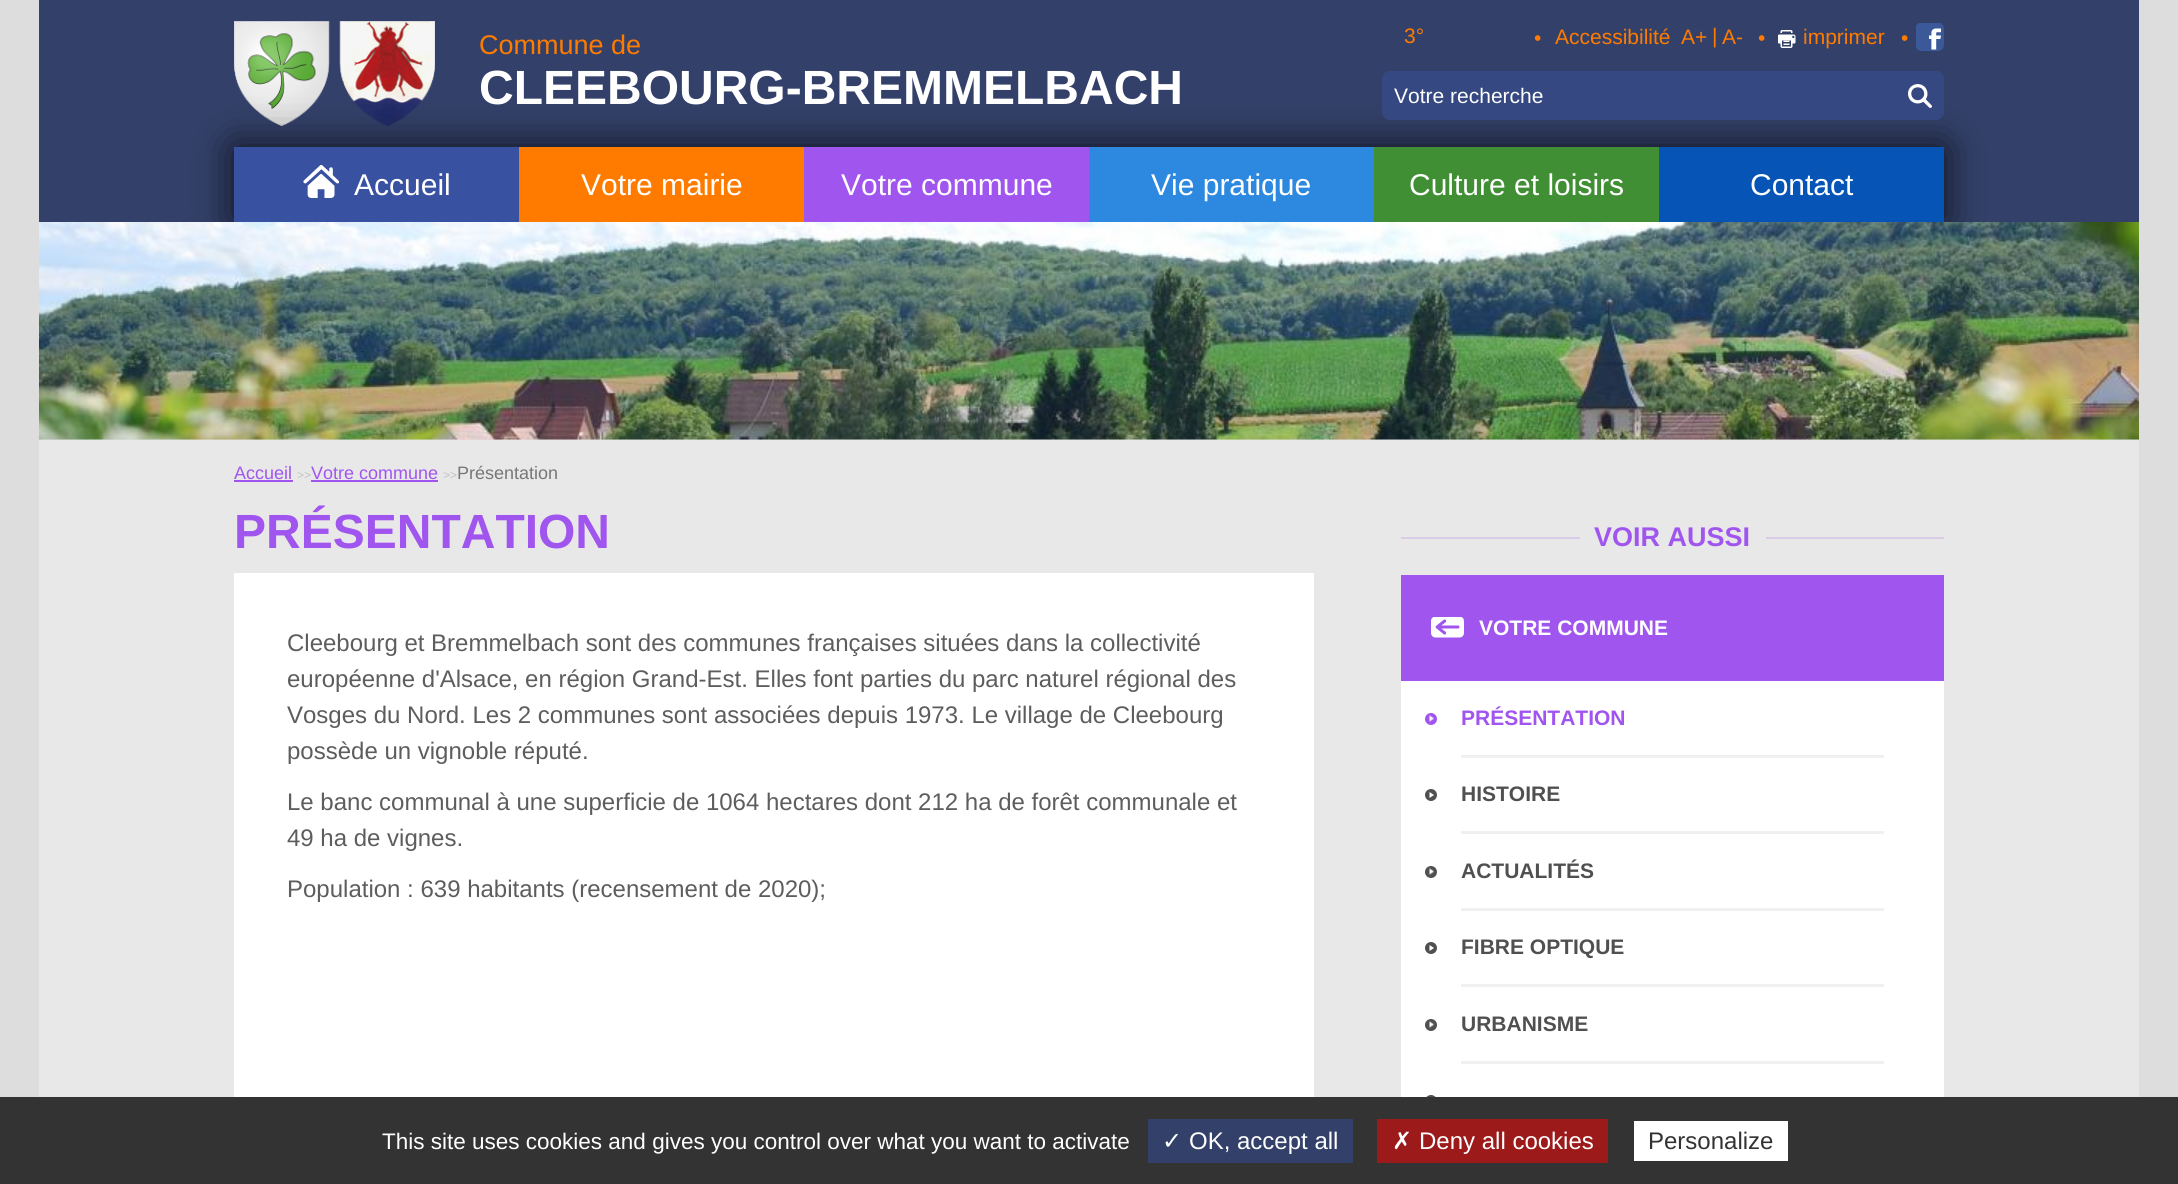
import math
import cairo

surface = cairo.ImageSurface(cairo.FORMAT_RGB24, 2178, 1184)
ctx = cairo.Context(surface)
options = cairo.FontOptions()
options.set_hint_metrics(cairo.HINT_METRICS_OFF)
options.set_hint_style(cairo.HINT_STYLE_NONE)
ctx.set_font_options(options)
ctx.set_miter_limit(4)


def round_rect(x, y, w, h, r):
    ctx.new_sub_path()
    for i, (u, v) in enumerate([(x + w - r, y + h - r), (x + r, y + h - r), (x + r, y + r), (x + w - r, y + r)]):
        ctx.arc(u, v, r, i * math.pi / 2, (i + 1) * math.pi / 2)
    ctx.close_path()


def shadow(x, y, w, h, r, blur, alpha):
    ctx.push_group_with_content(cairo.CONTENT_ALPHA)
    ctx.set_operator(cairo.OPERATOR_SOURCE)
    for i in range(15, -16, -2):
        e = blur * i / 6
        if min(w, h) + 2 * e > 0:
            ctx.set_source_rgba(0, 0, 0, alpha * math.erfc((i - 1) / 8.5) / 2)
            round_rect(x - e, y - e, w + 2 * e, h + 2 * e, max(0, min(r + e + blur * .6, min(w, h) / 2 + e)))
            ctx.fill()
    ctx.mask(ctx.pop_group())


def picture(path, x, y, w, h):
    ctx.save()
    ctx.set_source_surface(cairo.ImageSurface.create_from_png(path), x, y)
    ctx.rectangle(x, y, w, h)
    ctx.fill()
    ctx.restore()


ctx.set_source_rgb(0.867, 0.867, 0.867)
ctx.paint()
ctx.set_source_rgb(0.2, 0.251, 0.412)
ctx.rectangle(39, 0, 2100, 222)
ctx.fill()
ctx.select_font_face("Liberation Sans")
ctx.set_font_size(21)
ctx.set_source_rgb(1, 0.482, 0)
ctx.move_to(1404, 43)
ctx.show_text("3°")
ctx.move_to(1534, 45)
ctx.show_text("•")
ctx.move_to(1555, 44)
ctx.show_text("Accessibilité")
ctx.move_to(1681, 44)
ctx.show_text("A+")
ctx.move_to(1712, 43)
ctx.show_text("|")
ctx.move_to(1722, 44)
ctx.show_text("A-")
ctx.move_to(1758, 45)
ctx.show_text("•")
picture("img1.png", 1778, 30, 18, 18)
ctx.move_to(1803, 44)
ctx.show_text("imprimer")
ctx.move_to(1901, 45)
ctx.show_text("•")
picture("img2.png", 1916, 23, 28, 28)
picture("img5.png", 234, 21, 201, 105)
ctx.set_source_rgb(0, 0, 0)
shadow(234, 147, 1710, 75, 0, 20, 0.75)
ctx.set_source_rgb(0.208, 0.282, 0.51)
round_rect(1382, 71, 562, 49, 8)
ctx.fill()
ctx.set_source_rgb(1, 1, 1)
ctx.move_to(1394, 103)
ctx.show_text("Votre recherche")
picture("img3.png", 1908, 84, 24, 24)
ctx.set_source_rgb(0.22, 0.318, 0.631)
ctx.rectangle(234, 147, 285, 75)
ctx.fill()
picture("img4.png", 303, 165, 36, 33)
ctx.set_font_size(30)
ctx.set_source_rgb(1, 1, 1)
ctx.move_to(354, 195)
ctx.show_text("Accueil")
ctx.set_source_rgb(1, 0.482, 0)
ctx.rectangle(519, 147, 285, 75)
ctx.fill()
ctx.set_source_rgb(1, 1, 1)
ctx.move_to(581, 195)
ctx.show_text("Votre mairie")
ctx.set_source_rgb(0.631, 0.333, 0.937)
ctx.rectangle(804, 147, 285, 75)
ctx.fill()
ctx.set_source_rgb(1, 1, 1)
ctx.move_to(841, 195)
ctx.show_text("Votre commune")
ctx.set_source_rgb(0.176, 0.537, 0.875)
ctx.rectangle(1089, 147, 285, 75)
ctx.fill()
ctx.set_source_rgb(1, 1, 1)
ctx.move_to(1151, 195)
ctx.show_text("Vie pratique")
ctx.set_source_rgb(0.255, 0.561, 0.204)
ctx.rectangle(1374, 147, 285, 75)
ctx.fill()
ctx.set_source_rgb(1, 1, 1)
ctx.move_to(1409, 195)
ctx.show_text("Culture et loisirs")
ctx.set_source_rgb(0.02, 0.329, 0.714)
ctx.rectangle(1659, 147, 285, 75)
ctx.fill()
ctx.set_source_rgb(1, 1, 1)
ctx.move_to(1750, 195)
ctx.show_text("Contact")
ctx.set_font_size(27)
ctx.set_source_rgb(1, 0.482, 0)
ctx.move_to(479, 54)
ctx.show_text("Commune de")
ctx.select_font_face("Liberation Sans", cairo.FONT_SLANT_NORMAL, cairo.FONT_WEIGHT_BOLD)
ctx.set_font_size(48)
ctx.set_source_rgb(1, 1, 1)
ctx.move_to(479, 104)
ctx.show_text("CLEEBOURG-BREMMELBACH")
picture("img6.png", 39, 222, 2100, 218)
ctx.set_source_rgb(0.91, 0.91, 0.91)
ctx.rectangle(39, 440, 2100, 657)
ctx.fill()
ctx.select_font_face("Liberation Sans")
ctx.set_font_size(18)
ctx.set_source_rgb(0.631, 0.333, 0.937)
ctx.move_to(234, 479)
ctx.show_text("Accueil")
ctx.rectangle(234, 480, 59, 2)
ctx.fill()
ctx.set_font_size(12)
ctx.set_source_rgb(0.757, 0.757, 0.757)
ctx.move_to(297, 479)
ctx.show_text(">>")
ctx.set_source_rgb(0.631, 0.333, 0.937)
ctx.rectangle(311, 480, 127, 2)
ctx.fill()
ctx.set_font_size(18)
ctx.move_to(311, 479)
ctx.show_text("Votre commune")
ctx.set_font_size(12)
ctx.set_source_rgb(0.757, 0.757, 0.757)
ctx.move_to(443, 479)
ctx.show_text(">>")
ctx.set_font_size(18)
ctx.set_source_rgb(0.467, 0.467, 0.467)
ctx.move_to(457, 479)
ctx.show_text("Présentation")
ctx.select_font_face("Liberation Sans", cairo.FONT_SLANT_NORMAL, cairo.FONT_WEIGHT_BOLD)
ctx.set_font_size(48)
ctx.set_source_rgb(0.631, 0.333, 0.937)
ctx.move_to(234, 548)
ctx.show_text("PRÉSENTATION")
ctx.set_source_rgb(1, 1, 1)
ctx.rectangle(234, 573, 1080, 524)
ctx.fill()
ctx.select_font_face("Liberation Sans")
ctx.set_font_size(24)
ctx.set_source_rgb(0.365, 0.365, 0.365)
ctx.move_to(287, 651)
ctx.show_text("Cleebourg et Bremmelbach sont des communes françaises situées dans la collectivité")
ctx.move_to(287, 687)
ctx.show_text("européenne d'Alsace, en région Grand-Est. Elles font parties du parc naturel régional des")
ctx.move_to(287, 723)
ctx.show_text("Vosges du Nord. Les 2 communes sont associées depuis 1973. Le village de Cleebourg")
ctx.move_to(287, 759)
ctx.show_text("possède un vignoble réputé.")
ctx.move_to(287, 810)
ctx.show_text("Le banc communal à une superficie de 1064 hectares dont 212 ha de forêt communale et")
ctx.move_to(287, 846)
ctx.show_text("49 ha de vignes.")
ctx.move_to(287, 897)
ctx.show_text("Population : 639 habitants (recensement de 2020);")
ctx.set_source_rgb(0.855, 0.796, 0.914)
ctx.rectangle(1401, 537, 179, 2)
ctx.fill()
ctx.select_font_face("Liberation Sans", cairo.FONT_SLANT_NORMAL, cairo.FONT_WEIGHT_BOLD)
ctx.set_font_size(27)
ctx.set_source_rgb(0.631, 0.333, 0.937)
ctx.move_to(1594, 546)
ctx.show_text("VOIR AUSSI")
ctx.set_source_rgb(0.855, 0.796, 0.914)
ctx.rectangle(1766, 537, 178, 2)
ctx.fill()
ctx.set_source_rgb(1, 1, 1)
ctx.rectangle(1401, 681, 543, 416)
ctx.fill()
ctx.set_source_rgb(0.631, 0.333, 0.937)
ctx.rectangle(1401, 575, 543, 106)
ctx.fill()
picture("img7.png", 1431, 617, 33, 21)
ctx.set_font_size(21)
ctx.set_source_rgb(1, 1, 1)
ctx.move_to(1479, 635)
ctx.show_text("VOTRE COMMUNE")
ctx.set_source_rgb(0.631, 0.333, 0.937)
ctx.new_path()
ctx.arc(1431, 719, 6, 0, 2 * math.pi)
ctx.fill()
picture("img8.png", 1429, 715, 5, 7)
ctx.move_to(1461, 725)
ctx.show_text("PRÉSENTATION")
ctx.set_source_rgb(0.941, 0.941, 0.941)
ctx.rectangle(1461, 755, 423, 3)
ctx.fill()
ctx.set_source_rgb(0.314, 0.314, 0.314)
ctx.arc(1431, 795, 6, 0, 2 * math.pi)
ctx.fill()
picture("img9.png", 1429, 792, 5, 6)
ctx.move_to(1461, 801)
ctx.show_text("HISTOIRE")
ctx.set_source_rgb(0.941, 0.941, 0.941)
ctx.rectangle(1461, 831, 423, 3)
ctx.fill()
ctx.set_source_rgb(0.314, 0.314, 0.314)
ctx.arc(1431, 872, 6, 0, 2 * math.pi)
ctx.fill()
picture("img10.png", 1429, 868, 5, 7)
ctx.move_to(1461, 878)
ctx.show_text("ACTUALITÉS")
ctx.set_source_rgb(0.941, 0.941, 0.941)
ctx.rectangle(1461, 908, 423, 3)
ctx.fill()
ctx.set_source_rgb(0.314, 0.314, 0.314)
ctx.arc(1431, 948, 6, 0, 2 * math.pi)
ctx.fill()
picture("img9.png", 1429, 945, 5, 6)
ctx.move_to(1461, 954)
ctx.show_text("FIBRE OPTIQUE")
ctx.set_source_rgb(0.941, 0.941, 0.941)
ctx.rectangle(1461, 984, 423, 3)
ctx.fill()
ctx.set_source_rgb(0.314, 0.314, 0.314)
ctx.arc(1431, 1025, 6, 0, 2 * math.pi)
ctx.fill()
picture("img10.png", 1429, 1021, 5, 7)
ctx.move_to(1461, 1031)
ctx.show_text("URBANISME")
ctx.set_source_rgb(0.941, 0.941, 0.941)
ctx.rectangle(1461, 1061, 423, 3)
ctx.fill()
ctx.set_source_rgb(0.314, 0.314, 0.314)
ctx.arc(1431, 1101, 6, 0, 2 * math.pi)
ctx.fill()
ctx.set_source_rgb(0.2, 0.2, 0.2)
ctx.rectangle(0, 1097, 2178, 87)
ctx.fill()
ctx.select_font_face("Liberation Sans")
ctx.set_font_size(22.5)
ctx.set_source_rgb(1, 1, 1)
ctx.move_to(382, 1149)
ctx.show_text("This site uses cookies and gives you control over what you want to activate")
ctx.set_source_rgb(0.2, 0.251, 0.412)
ctx.rectangle(1148, 1119, 205, 44)
ctx.fill()
ctx.select_font_face("DejaVu Sans")
ctx.set_font_size(24)
ctx.set_source_rgb(1, 1, 1)
ctx.move_to(1162, 1149)
ctx.show_text("✓")
ctx.select_font_face("Liberation Sans")
ctx.move_to(1189, 1149)
ctx.show_text("OK, accept all")
ctx.set_source_rgb(0.612, 0.102, 0.102)
ctx.rectangle(1377, 1119, 231, 44)
ctx.fill()
ctx.select_font_face("DejaVu Sans")
ctx.set_source_rgb(1, 1, 1)
ctx.move_to(1392, 1149)
ctx.show_text("✗")
ctx.select_font_face("Liberation Sans")
ctx.move_to(1419, 1149)
ctx.show_text("Deny all cookies")
ctx.rectangle(1634, 1121, 154, 40)
ctx.fill()
ctx.set_source_rgb(0.2, 0.2, 0.2)
ctx.move_to(1648, 1149)
ctx.show_text("Personalize")
surface.write_to_png("page.png")
